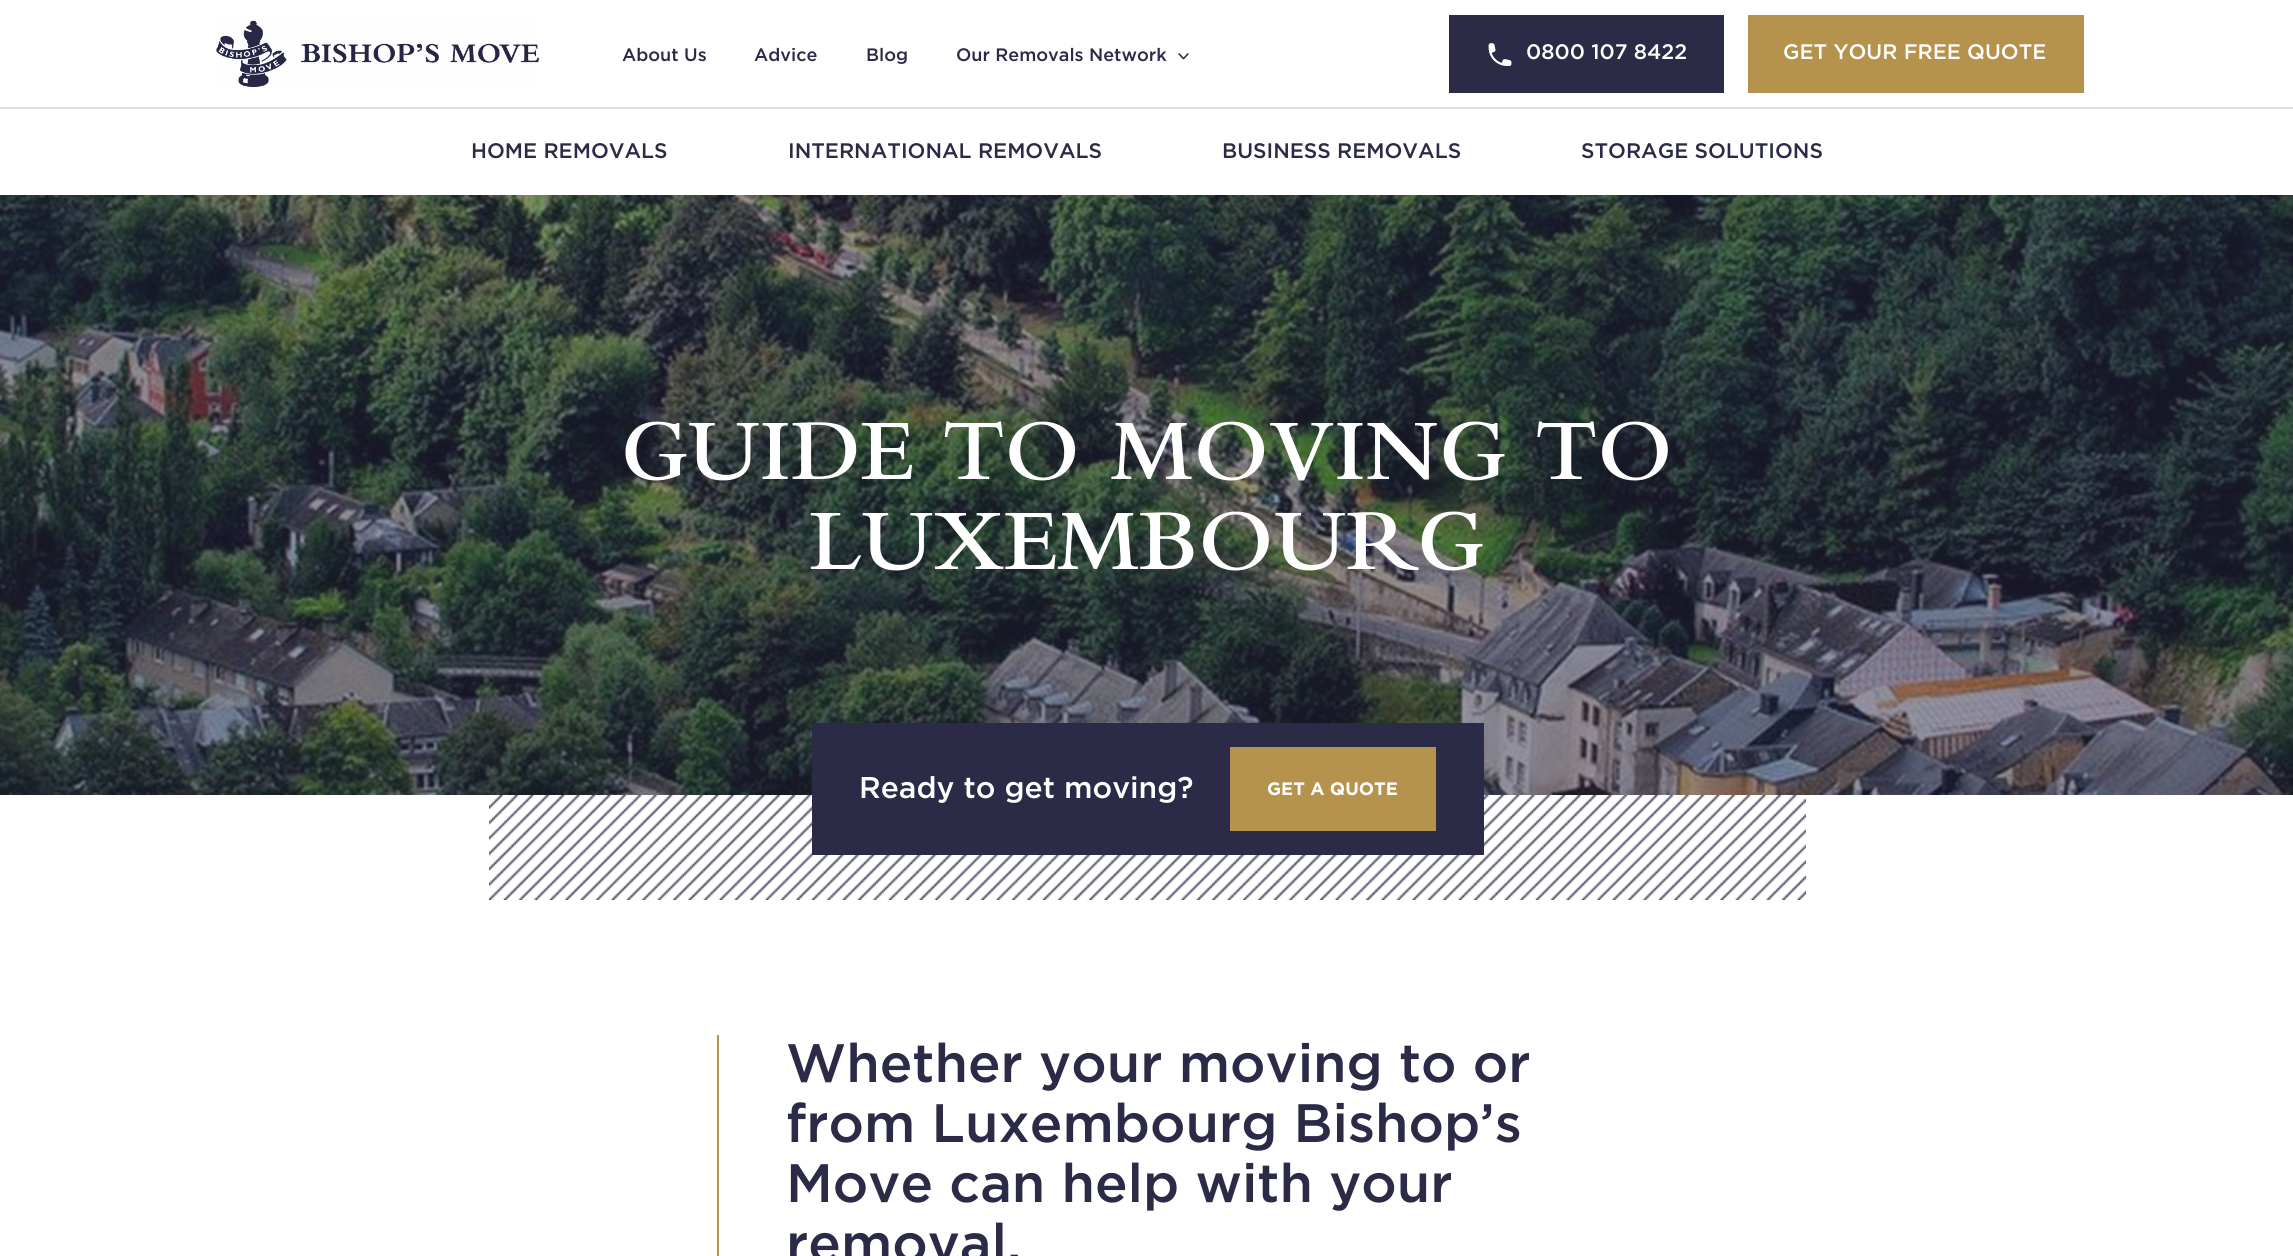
import math
import cairo

surface = cairo.ImageSurface(cairo.FORMAT_RGB24, 2293, 1256)
ctx = cairo.Context(surface)
options = cairo.FontOptions()
options.set_hint_metrics(cairo.HINT_METRICS_OFF)
options.set_hint_style(cairo.HINT_STYLE_NONE)
ctx.set_font_options(options)
ctx.set_miter_limit(4)


def picture(path, x, y, w, h):
    ctx.save()
    ctx.set_source_surface(cairo.ImageSurface.create_from_png(path), x, y)
    ctx.rectangle(x, y, w, h)
    ctx.fill()
    ctx.restore()


ctx.set_source_rgb(1, 1, 1)
ctx.paint()
picture("img1.png", 216, 20, 323, 68)
ctx.select_font_face("Gotham Medium")
ctx.set_font_size(18)
ctx.set_source_rgb(0.169, 0.169, 0.278)
ctx.move_to(622, 61)
ctx.show_text("About Us")
ctx.move_to(754, 61)
ctx.show_text("Advice")
ctx.move_to(866, 61)
ctx.show_text("Blog")
ctx.move_to(956, 61)
ctx.show_text("Our Removals Network")
picture("img2.png", 1178, 53, 11, 7)
ctx.rectangle(1449, 15, 275, 78)
ctx.fill()
picture("img3.png", 1488, 43, 24, 23)
ctx.set_font_size(21)
ctx.set_source_rgb(1, 1, 1)
ctx.move_to(1526, 59)
ctx.show_text("0800 107 8422")
ctx.set_source_rgb(0.71, 0.576, 0.298)
ctx.rectangle(1748, 15, 336, 78)
ctx.fill()
ctx.set_source_rgb(1, 1, 1)
ctx.move_to(1783, 59)
ctx.show_text("GET YOUR FREE QUOTE")
ctx.set_source_rgb(0.878, 0.878, 0.878)
ctx.rectangle(0, 107, 2293, 2)
ctx.fill()
ctx.set_source_rgb(0.169, 0.169, 0.278)
ctx.move_to(471, 158)
ctx.show_text("HOME REMOVALS")
ctx.move_to(788, 158)
ctx.show_text("INTERNATIONAL REMOVALS")
ctx.move_to(1222, 158)
ctx.show_text("BUSINESS REMOVALS")
ctx.move_to(1581, 158)
ctx.show_text("STORAGE SOLUTIONS")
picture("img4.png", 0, 195, 2293, 600)
ctx.select_font_face("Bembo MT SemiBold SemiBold")
ctx.set_font_size(90)
ctx.set_source_rgb(1, 1, 1)
ctx.move_to(621, 479)
ctx.show_text("GUIDE TO MOVING TO")
ctx.move_to(809, 569)
ctx.show_text("LUXEMBOURG")
picture("img5.png", 489, 795, 1317, 105)
ctx.set_source_rgb(0.169, 0.169, 0.278)
ctx.rectangle(812, 723, 672, 132)
ctx.fill()
ctx.select_font_face("Gotham Medium")
ctx.set_font_size(30)
ctx.set_source_rgb(1, 1, 1)
ctx.move_to(859, 798)
ctx.show_text("Ready to get moving?")
ctx.set_source_rgb(0.71, 0.576, 0.298)
ctx.rectangle(1230, 747, 206, 84)
ctx.fill()
ctx.select_font_face("Gotham", cairo.FONT_SLANT_NORMAL, cairo.FONT_WEIGHT_BOLD)
ctx.set_font_size(18)
ctx.set_source_rgb(1, 1, 1)
ctx.move_to(1267, 795)
ctx.show_text("GET A QUOTE")
ctx.set_source_rgb(0.71, 0.576, 0.298)
ctx.rectangle(717, 1035, 2, 221)
ctx.fill()
ctx.select_font_face("Gotham Medium")
ctx.set_font_size(54)
ctx.set_source_rgb(0.169, 0.169, 0.278)
ctx.move_to(786, 1082)
ctx.show_text("Whether your moving to or")
ctx.move_to(786, 1142)
ctx.show_text("from Luxembourg Bishop’s")
ctx.move_to(786, 1202)
ctx.show_text("Move can help with your")
ctx.move_to(786, 1262)
ctx.show_text("removal.")
surface.write_to_png("page.png")
